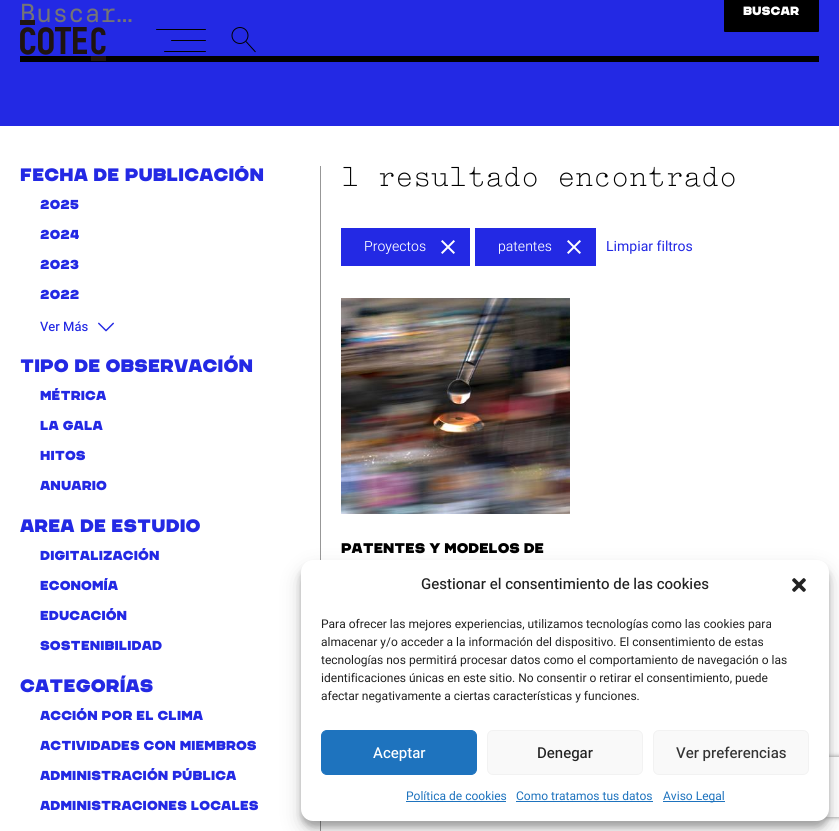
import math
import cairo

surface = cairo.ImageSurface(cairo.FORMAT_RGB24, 839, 831)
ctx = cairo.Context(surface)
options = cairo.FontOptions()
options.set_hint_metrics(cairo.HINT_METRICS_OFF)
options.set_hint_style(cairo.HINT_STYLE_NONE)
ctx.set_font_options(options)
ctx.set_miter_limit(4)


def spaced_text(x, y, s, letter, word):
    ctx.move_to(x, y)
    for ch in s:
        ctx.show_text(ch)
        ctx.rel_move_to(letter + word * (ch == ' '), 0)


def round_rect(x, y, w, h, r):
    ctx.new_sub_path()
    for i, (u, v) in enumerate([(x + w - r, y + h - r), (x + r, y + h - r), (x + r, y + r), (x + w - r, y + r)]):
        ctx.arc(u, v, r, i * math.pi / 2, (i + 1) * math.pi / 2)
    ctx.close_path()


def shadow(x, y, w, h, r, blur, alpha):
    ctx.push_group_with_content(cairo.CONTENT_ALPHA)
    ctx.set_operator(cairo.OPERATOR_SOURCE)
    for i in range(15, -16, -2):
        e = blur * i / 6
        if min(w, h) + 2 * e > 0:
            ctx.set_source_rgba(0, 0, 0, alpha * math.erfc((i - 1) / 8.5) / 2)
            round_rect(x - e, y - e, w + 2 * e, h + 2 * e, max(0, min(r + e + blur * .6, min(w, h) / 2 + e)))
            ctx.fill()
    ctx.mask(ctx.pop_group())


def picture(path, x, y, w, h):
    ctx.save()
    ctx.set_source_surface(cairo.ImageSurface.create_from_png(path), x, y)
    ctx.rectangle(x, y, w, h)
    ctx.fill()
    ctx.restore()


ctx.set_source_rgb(1, 1, 1)
ctx.paint()
ctx.set_source_rgb(0.137, 0.161, 0.894)
ctx.rectangle(0, 0, 839, 126)
ctx.fill()
ctx.set_source_rgb(0, 0, 0)
ctx.rectangle(20, 56, 799, 6)
ctx.fill()
ctx.select_font_face("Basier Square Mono")
ctx.set_font_size(26)
ctx.set_source_rgb(0.459, 0.459, 0.459)
ctx.move_to(20, 22)
ctx.show_text("Buscar…")
ctx.set_source_rgb(0, 0, 0)
round_rect(724, -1, 95, 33, 1)
ctx.fill()
ctx.select_font_face("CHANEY")
ctx.set_font_size(12)
ctx.set_source_rgb(1, 1, 1)
ctx.move_to(743, 15)
ctx.show_text("Buscar")
ctx.save()
ctx.rectangle(20, 166, 300, 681)
ctx.clip()
ctx.set_font_size(18)
ctx.set_source_rgb(0.137, 0.161, 0.894)
spaced_text(20, 181, "Fecha de publicación", 0.1, 0)
ctx.restore()
ctx.set_font_size(13)
ctx.set_source_rgb(0.137, 0.161, 0.894)
spaced_text(40, 209, "2025", 0.1, 0)
spaced_text(40, 239, "2024", 0.1, 0)
spaced_text(40, 269, "2023", 0.1, 0)
spaced_text(40, 299, "2022", 0.1, 0)
ctx.select_font_face("Heebo Medium")
ctx.move_to(40, 331)
ctx.show_text("Ver Más")
picture("img1.png", 98, 322, 16, 10)
ctx.select_font_face("CHANEY")
ctx.set_font_size(18)
spaced_text(20, 372, "Tipo de Observación", 0.1, 0)
ctx.set_font_size(13)
spaced_text(40, 400, "Métrica", 0.1, 0)
spaced_text(40, 430, "La Gala", 0.1, 0)
spaced_text(40, 460, "Hitos", 0.1, 0)
spaced_text(40, 490, "Anuario", 0.1, 0)
ctx.set_font_size(18)
spaced_text(20, 532, "Area de Estudio", 0.1, 0)
ctx.set_font_size(13)
spaced_text(40, 560, "Digitalización", 0.1, 0)
spaced_text(40, 590, "Economía", 0.1, 0)
spaced_text(40, 620, "Educación", 0.1, 0)
spaced_text(40, 650, "Sostenibilidad", 0.1, 0)
ctx.set_font_size(18)
spaced_text(20, 692, "Categorías", 0.1, 0)
ctx.set_font_size(13)
spaced_text(40, 720, "Acción por el clima", 0.1, 0)
spaced_text(40, 750, "Actividades con miembros", 0.1, 0)
spaced_text(40, 780, "administración pública", 0.1, 0)
spaced_text(40, 810, "Administraciones locales", 0.1, 0)
ctx.set_source_rgb(0.592, 0.592, 0.592)
ctx.rectangle(320, 166, 1, 665)
ctx.fill()
ctx.select_font_face("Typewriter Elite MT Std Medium")
ctx.set_font_size(30)
ctx.set_source_rgb(0, 0, 0)
ctx.move_to(341, 186)
ctx.show_text("1 resultado encontrado")
ctx.set_source_rgb(0.137, 0.161, 0.894)
ctx.rectangle(341, 228, 129, 38)
ctx.fill()
ctx.select_font_face("Heebo Light")
ctx.set_font_size(14)
ctx.set_source_rgb(1, 1, 1)
ctx.move_to(364, 251)
ctx.show_text("Proyectos")
picture("img2.png", 441, 240, 14, 14)
ctx.set_source_rgb(0.137, 0.161, 0.894)
ctx.rectangle(475, 228, 121, 38)
ctx.fill()
ctx.set_source_rgb(1, 1, 1)
ctx.move_to(498, 251)
ctx.show_text("patentes")
picture("img2.png", 567, 240, 14, 14)
ctx.select_font_face("Heebo")
ctx.set_source_rgb(0.137, 0.161, 0.894)
ctx.move_to(606, 251)
ctx.show_text("Limpiar filtros")
picture("img3.png", 341, 298, 229, 216)
ctx.select_font_face("CHANEY")
ctx.set_source_rgb(0, 0, 0)
ctx.move_to(341, 553)
ctx.show_text("PATENTES Y MODELOS DE")
picture("img4.png", 20, 20, 86, 41)
round_rect(156, 29, 50, 1, 0.5)
ctx.fill()
round_rect(171, 40, 35, 1, 0.5)
ctx.fill()
round_rect(164, 51, 42, 1, 0.5)
ctx.fill()
ctx.arc(240, 35.5, 8, 0, 2 * math.pi)
ctx.set_line_width(1)
ctx.stroke()
ctx.new_path()
ctx.move_to(246, 41.5)
ctx.line_to(255.5, 52)
ctx.stroke()
ctx.set_source_rgb(0, 0, 0)
shadow(301, 566, 528, 261, 12, 3, 0.23)
shadow(301, 570, 528, 261, 12, 10, 0.19)
ctx.save()
ctx.set_fill_rule(cairo.FILL_RULE_EVEN_ODD)
ctx.new_path()
ctx.move_to(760, 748)
ctx.line_to(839, 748)
ctx.line_to(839, 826)
ctx.line_to(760, 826)
ctx.close_path()
ctx.move_to(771, 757)
ctx.line_to(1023, 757)
ctx.curve_to(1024, 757, 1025, 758, 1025, 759)
ctx.line_to(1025, 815)
ctx.curve_to(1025, 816, 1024, 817, 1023, 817)
ctx.line_to(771, 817)
ctx.curve_to(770, 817, 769, 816, 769, 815)
ctx.line_to(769, 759)
ctx.curve_to(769, 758, 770, 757, 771, 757)
ctx.close_path()
ctx.clip()
ctx.set_source_rgb(0.502, 0.502, 0.502)
shadow(769, 757, 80, 60, 2, 2.5, 1)
ctx.restore()
ctx.set_source_rgb(1, 1, 1)
round_rect(301, 560, 528, 261, 12)
ctx.fill()
ctx.select_font_face("Heebo Medium")
ctx.set_font_size(15)
ctx.set_source_rgb(0.133, 0.133, 0.133)
ctx.move_to(421, 589)
ctx.show_text("Gestionar el consentimiento de las cookies")
picture("img5.png", 792, 578, 14, 14)
ctx.select_font_face("Heebo")
ctx.set_font_size(12)
ctx.move_to(321, 628)
ctx.show_text("Para ofrecer las mejores experiencias, utilizamos tecnologías como las cookies para")
ctx.move_to(321, 646)
ctx.show_text("almacenar y/o acceder a la información del dispositivo. El consentimiento de estas")
ctx.move_to(321, 664)
ctx.show_text("tecnologías nos permitirá procesar datos como el comportamiento de navegación o las")
ctx.move_to(321, 682)
ctx.show_text("identificaciones únicas en este sitio. No consentir o retirar el consentimiento, puede")
ctx.move_to(321, 700)
ctx.show_text("afectar negativamente a ciertas características y funciones.")
ctx.set_source_rgb(0.118, 0.451, 0.745)
round_rect(321.5, 730.5, 155, 44, 5.5)
ctx.fill_preserve()
ctx.stroke()
ctx.select_font_face("Heebo Medium")
ctx.set_font_size(15)
ctx.set_source_rgb(1, 1, 1)
ctx.move_to(373, 758)
ctx.show_text("Aceptar")
ctx.set_source_rgb(0.976, 0.976, 0.976)
round_rect(487.5, 730.5, 155, 44, 5.5)
ctx.fill_preserve()
ctx.set_source_rgb(0.949, 0.949, 0.949)
ctx.stroke()
ctx.set_source_rgb(0.133, 0.133, 0.133)
ctx.move_to(537, 758)
ctx.show_text("Denegar")
ctx.set_source_rgb(0.976, 0.976, 0.976)
round_rect(653.5, 730.5, 155, 44, 5.5)
ctx.fill_preserve()
ctx.set_source_rgb(0.949, 0.949, 0.949)
ctx.stroke()
ctx.set_source_rgb(0.2, 0.2, 0.2)
ctx.move_to(676, 758)
ctx.show_text("Ver preferencias")
ctx.select_font_face("Heebo")
ctx.set_font_size(12)
ctx.set_source_rgb(0.118, 0.451, 0.745)
ctx.move_to(406, 800)
ctx.show_text("Política de cookies")
ctx.rectangle(406, 801, 100, 1)
ctx.fill()
ctx.move_to(516, 800)
ctx.show_text("Como tratamos tus datos")
ctx.rectangle(516, 801, 137, 1)
ctx.fill()
ctx.rectangle(663, 801, 62, 1)
ctx.fill()
ctx.move_to(663, 800)
ctx.show_text("Aviso Legal")
surface.write_to_png("page.png")
